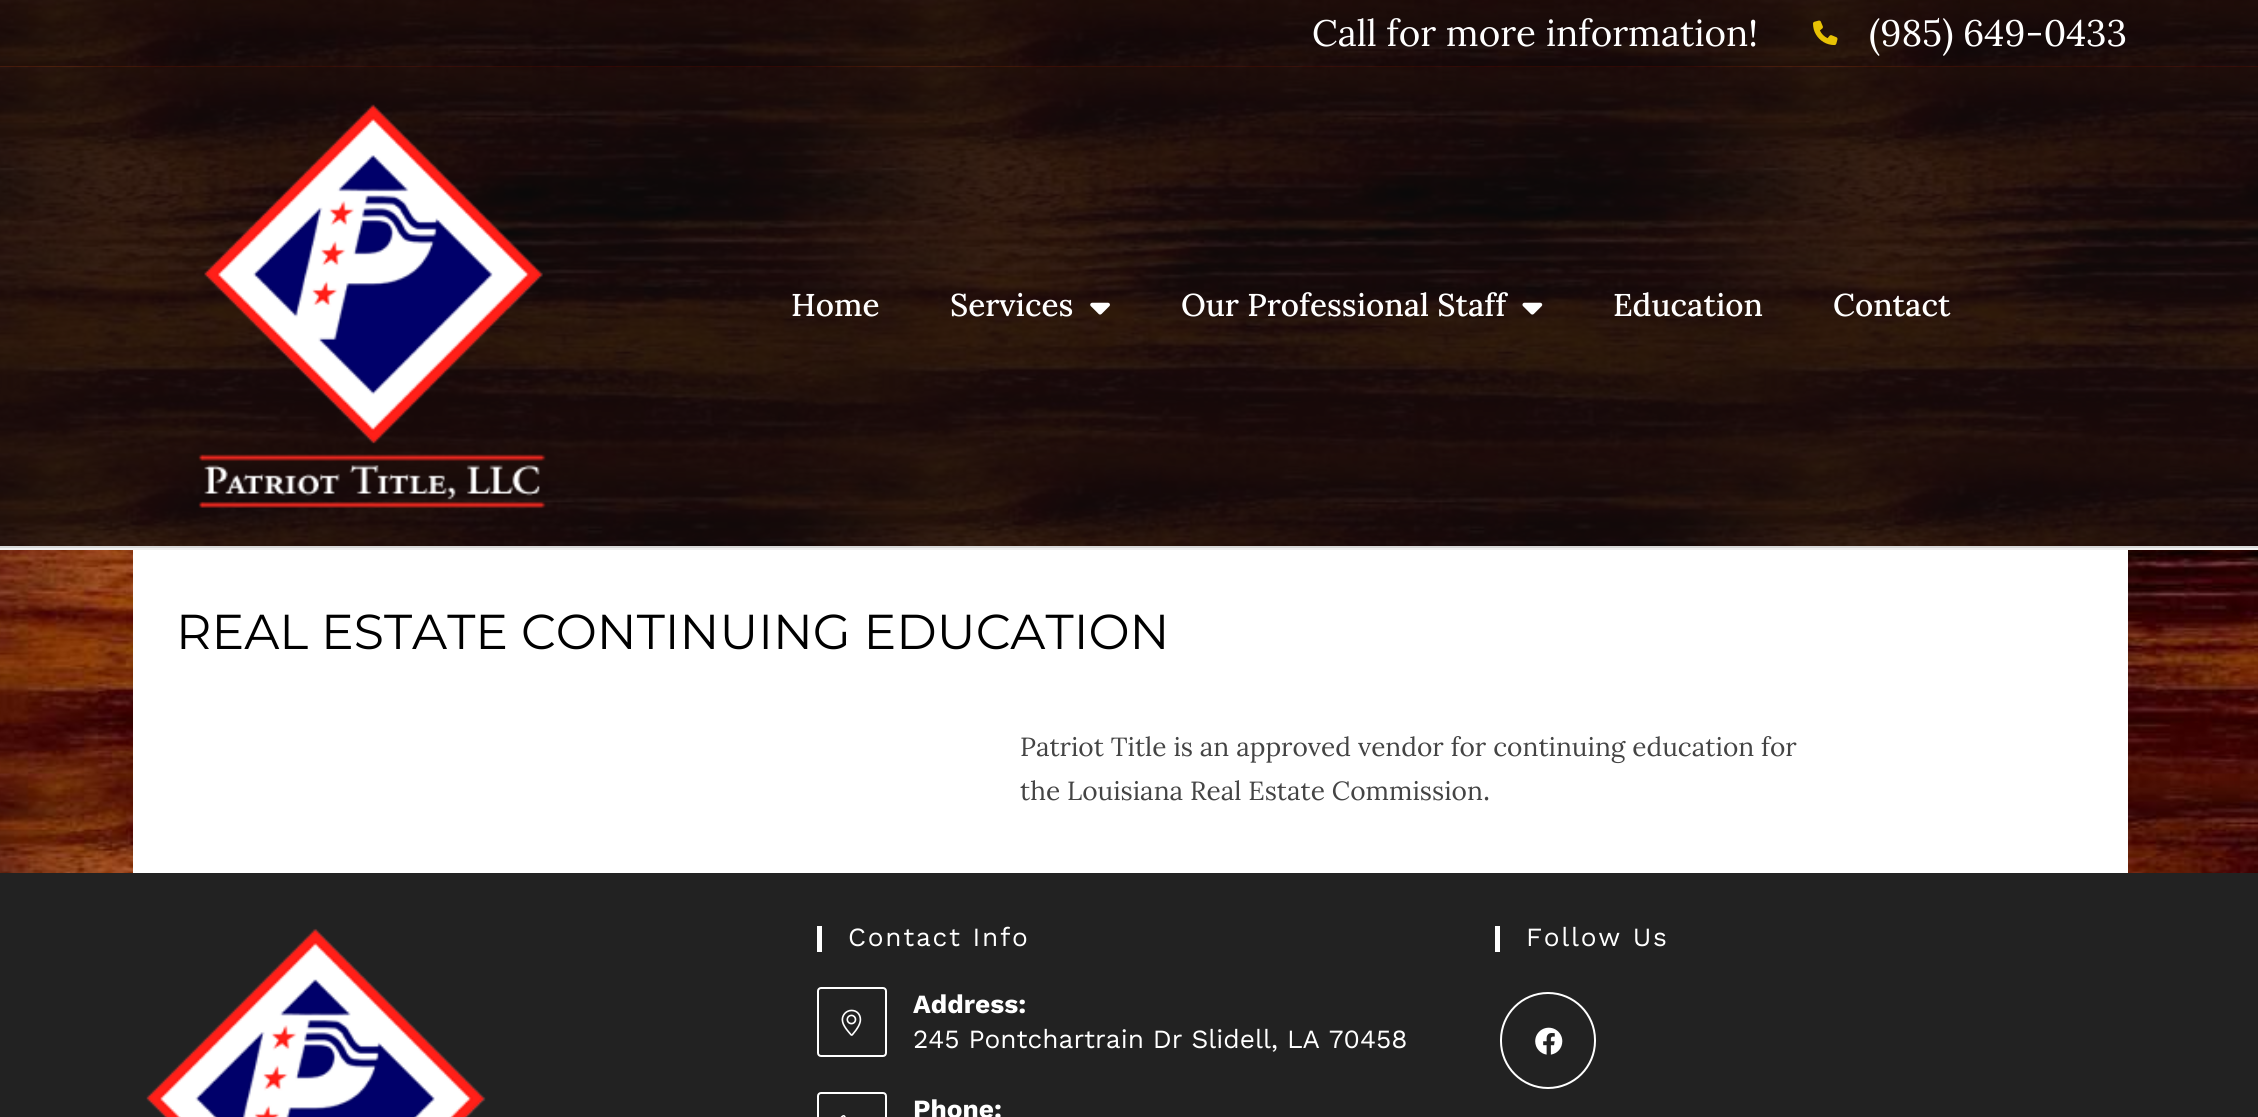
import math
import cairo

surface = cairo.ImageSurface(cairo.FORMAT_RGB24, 2258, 1117)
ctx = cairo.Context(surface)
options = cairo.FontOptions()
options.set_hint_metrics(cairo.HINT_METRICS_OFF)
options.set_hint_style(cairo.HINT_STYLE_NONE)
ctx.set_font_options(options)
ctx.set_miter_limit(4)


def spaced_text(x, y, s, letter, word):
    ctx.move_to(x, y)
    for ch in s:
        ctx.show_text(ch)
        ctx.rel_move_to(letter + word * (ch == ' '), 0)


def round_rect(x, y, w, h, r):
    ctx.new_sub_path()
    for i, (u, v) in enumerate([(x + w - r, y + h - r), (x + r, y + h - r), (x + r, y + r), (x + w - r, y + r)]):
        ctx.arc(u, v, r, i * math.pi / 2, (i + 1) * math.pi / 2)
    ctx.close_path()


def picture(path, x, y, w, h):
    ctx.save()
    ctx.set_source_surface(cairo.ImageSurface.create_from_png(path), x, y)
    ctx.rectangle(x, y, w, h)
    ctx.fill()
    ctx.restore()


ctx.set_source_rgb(1, 1, 1)
ctx.paint()
picture("img1.png", 0, 550, 2258, 323)
ctx.set_source_rgb(0.945, 0.945, 0.945)
ctx.rectangle(0, 548, 2258, 2)
ctx.fill()
picture("img2.png", 0, 0, 2258, 67)
picture("img3.png", 794, 0, 883, 1)
ctx.set_source_rgba(0.047, 0.047, 0.047, 0.73)
ctx.rectangle(0, 0, 2258, 67)
ctx.fill()
ctx.select_font_face("Lora")
ctx.set_font_size(36.75)
ctx.set_source_rgb(1, 1, 1)
ctx.move_to(1312, 46)
ctx.show_text("Call for more information!")
picture("img4.png", 1813, 20, 25, 26)
ctx.move_to(1869, 46)
ctx.show_text("(985) 649-0433")
picture("img5.png", 0, 66, 2258, 480)
ctx.set_source_rgb(0.847, 0.847, 0.847)
ctx.rectangle(0, 546, 2258, 2)
ctx.fill()
picture("img6.png", 198, 104, 348, 404)
ctx.select_font_face("Lora Medium")
ctx.set_font_size(31.5)
ctx.set_source_rgb(1, 1, 1)
ctx.move_to(791, 316)
ctx.show_text("Home")
ctx.move_to(950, 316)
ctx.show_text("Services")
picture("img7.png", 1090, 302, 20, 13)
ctx.move_to(1181, 316)
ctx.show_text("Our Professional Staff")
picture("img8.png", 1522, 302, 21, 13)
ctx.move_to(1613, 316)
ctx.show_text("Education")
ctx.move_to(1833, 316)
ctx.show_text("Contact")
ctx.rectangle(133, 550, 1995, 323)
ctx.fill()
ctx.select_font_face("Montserrat")
ctx.set_font_size(49)
ctx.set_source_rgb(0, 0, 0)
ctx.move_to(176, 649)
ctx.show_text("REAL ESTATE CONTINUING EDUCATION")
ctx.select_font_face("Lora")
ctx.set_font_size(26.25)
ctx.set_source_rgb(0.267, 0.267, 0.267)
ctx.move_to(1020, 756)
ctx.show_text("Patriot Title is an approved vendor for continuing education for")
ctx.move_to(1020, 800)
ctx.show_text("the Louisiana Real Estate Commission")
ctx.set_font_size(29)
ctx.move_to(1483, 800)
ctx.show_text(".")
ctx.set_source_rgb(0.133, 0.133, 0.133)
ctx.rectangle(0, 873, 2258, 244)
ctx.fill()
picture("img9.png", 146, 928, 340, 189)
ctx.set_source_rgb(1, 1, 1)
ctx.rectangle(817, 926, 5, 26)
ctx.fill()
ctx.select_font_face("Work Sans")
ctx.set_font_size(26.25)
spaced_text(848, 946, "Contact Info", 1.75, 0)
round_rect(818, 988, 68, 68, 3)
ctx.stroke()
picture("img10.png", 841, 1009, 21, 27)
ctx.select_font_face("Work Sans", cairo.FONT_SLANT_NORMAL, cairo.FONT_WEIGHT_BOLD)
ctx.move_to(913, 1013)
ctx.show_text("Address:")
ctx.select_font_face("Work Sans")
ctx.move_to(913, 1048)
ctx.show_text("245 Pontchartrain Dr Slidell, LA 70458")
round_rect(818, 1093, 68, 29, 3)
ctx.stroke()
picture("img11.png", 840, 1115, 6, 2)
ctx.select_font_face("Work Sans", cairo.FONT_SLANT_NORMAL, cairo.FONT_WEIGHT_BOLD)
ctx.move_to(913, 1118)
ctx.show_text("Phone:")
ctx.rectangle(1495, 926, 5, 26)
ctx.fill()
ctx.select_font_face("Work Sans")
spaced_text(1526, 946, "Follow Us", 1.75, 0)
round_rect(1501, 993, 94, 95, 47)
ctx.stroke()
picture("img12.png", 1535, 1027, 28, 28)
surface.write_to_png("page.png")
